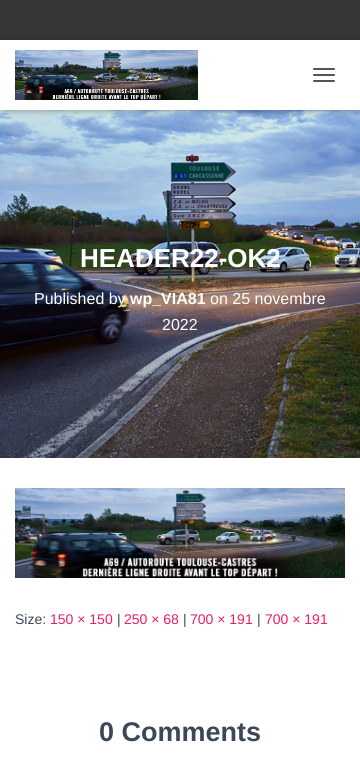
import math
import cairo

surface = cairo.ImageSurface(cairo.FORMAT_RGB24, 360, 763)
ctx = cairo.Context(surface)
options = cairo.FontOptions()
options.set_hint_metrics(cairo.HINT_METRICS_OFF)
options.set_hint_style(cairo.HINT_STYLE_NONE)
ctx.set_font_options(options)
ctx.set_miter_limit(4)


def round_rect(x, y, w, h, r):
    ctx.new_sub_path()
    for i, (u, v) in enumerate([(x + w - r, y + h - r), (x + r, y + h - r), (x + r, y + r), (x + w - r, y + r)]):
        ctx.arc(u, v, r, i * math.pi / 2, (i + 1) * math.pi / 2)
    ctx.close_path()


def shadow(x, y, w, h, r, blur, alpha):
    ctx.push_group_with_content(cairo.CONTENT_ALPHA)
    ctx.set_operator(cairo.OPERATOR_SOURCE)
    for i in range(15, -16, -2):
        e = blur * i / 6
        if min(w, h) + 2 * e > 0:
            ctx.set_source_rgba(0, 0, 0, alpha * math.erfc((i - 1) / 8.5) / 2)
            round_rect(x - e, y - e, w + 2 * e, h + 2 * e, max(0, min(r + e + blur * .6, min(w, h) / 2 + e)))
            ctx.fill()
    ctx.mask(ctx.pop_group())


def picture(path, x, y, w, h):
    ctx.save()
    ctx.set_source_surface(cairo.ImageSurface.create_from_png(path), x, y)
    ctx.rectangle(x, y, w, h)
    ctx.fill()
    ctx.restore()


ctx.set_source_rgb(0.212, 0.208, 0.216)
ctx.paint()
picture("img2.png", 0, 110, 360, 348)
ctx.set_source_rgb(0, 0, 0)
shadow(2, 46, 356, 66, 0, 2.5, 0.1)
shadow(0, 41, 360, 70, 0, 5, 0.12)
shadow(6, 47, 348, 58, 0, 5, 0.42)
ctx.set_source_rgb(1, 1, 1)
ctx.rectangle(0, 40, 360, 70)
ctx.fill()
picture("img1.png", 15, 50, 183, 50)
ctx.set_source_rgb(0.333, 0.333, 0.333)
round_rect(313, 68, 22, 2, 1)
ctx.fill()
round_rect(313, 74, 22, 2, 1)
ctx.fill()
round_rect(313, 80, 22, 2, 1)
ctx.fill()
ctx.select_font_face("Liberation Sans", cairo.FONT_SLANT_NORMAL, cairo.FONT_WEIGHT_BOLD)
ctx.set_font_size(26)
ctx.set_source_rgb(1, 1, 1)
ctx.move_to(80, 267)
ctx.show_text("HEADER22-OK2")
ctx.select_font_face("Liberation Sans")
ctx.set_font_size(16)
ctx.move_to(34, 304)
ctx.show_text("Published by")
ctx.select_font_face("Liberation Sans", cairo.FONT_SLANT_NORMAL, cairo.FONT_WEIGHT_BOLD)
ctx.move_to(130, 304)
ctx.show_text("wp_VIA81")
ctx.select_font_face("Liberation Sans")
ctx.move_to(210, 304)
ctx.show_text("on 25 novembre")
ctx.move_to(162, 330)
ctx.show_text("2022")
ctx.rectangle(0, 458, 360, 305)
ctx.fill()
picture("img3.png", 15, 488, 330, 90)
ctx.set_font_size(14)
ctx.set_source_rgb(0.235, 0.282, 0.345)
ctx.move_to(15, 624)
ctx.show_text("Size:")
ctx.set_source_rgb(0.914, 0.118, 0.388)
ctx.move_to(50, 624)
ctx.show_text("150 × 150")
ctx.set_source_rgb(0.235, 0.282, 0.345)
ctx.move_to(117, 624)
ctx.show_text("|")
ctx.set_source_rgb(0.914, 0.118, 0.388)
ctx.move_to(124, 624)
ctx.show_text("250 × 68")
ctx.set_source_rgb(0.235, 0.282, 0.345)
ctx.move_to(183, 624)
ctx.show_text("|")
ctx.set_source_rgb(0.914, 0.118, 0.388)
ctx.move_to(190, 624)
ctx.show_text("700 × 191")
ctx.set_source_rgb(0.235, 0.282, 0.345)
ctx.move_to(257, 624)
ctx.show_text("|")
ctx.set_source_rgb(0.914, 0.118, 0.388)
ctx.move_to(265, 624)
ctx.show_text("700 × 191")
ctx.select_font_face("Liberation Sans", cairo.FONT_SLANT_NORMAL, cairo.FONT_WEIGHT_BOLD)
ctx.set_font_size(27)
ctx.set_source_rgb(0.235, 0.282, 0.345)
ctx.move_to(99, 741)
ctx.show_text("0 Comments")
surface.write_to_png("page.png")
